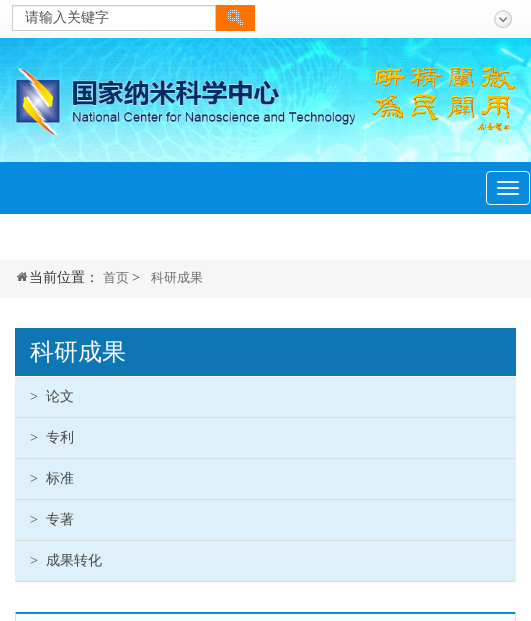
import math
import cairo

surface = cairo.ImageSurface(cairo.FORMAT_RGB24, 531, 621)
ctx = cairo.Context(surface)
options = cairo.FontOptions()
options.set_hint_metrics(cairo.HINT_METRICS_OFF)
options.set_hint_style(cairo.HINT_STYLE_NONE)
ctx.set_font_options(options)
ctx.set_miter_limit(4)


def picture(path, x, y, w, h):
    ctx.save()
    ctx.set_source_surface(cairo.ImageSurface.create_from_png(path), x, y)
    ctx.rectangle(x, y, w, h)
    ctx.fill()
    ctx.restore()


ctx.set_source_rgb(1, 1, 1)
ctx.paint()
picture("img1.png", 0, 5, 531, 209)
ctx.set_source_rgb(0.961, 0.961, 0.961)
ctx.rectangle(0, 260, 531, 38)
ctx.fill()
picture("img2.png", 16, 272, 12, 9)
ctx.select_font_face("WenQuanYi Zen Hei Medium")
ctx.set_font_size(14)
ctx.set_source_rgb(0.2, 0.2, 0.2)
ctx.move_to(29, 282)
ctx.show_text("当前位置：")
ctx.set_font_size(13)
ctx.set_source_rgb(0.424, 0.424, 0.424)
ctx.move_to(103, 282)
ctx.show_text("首页")
ctx.select_font_face("Liberation Serif")
ctx.set_font_size(14)
ctx.set_source_rgb(0.2, 0.2, 0.2)
ctx.move_to(132, 282)
ctx.show_text(">")
ctx.select_font_face("WenQuanYi Zen Hei Medium")
ctx.set_font_size(13)
ctx.set_source_rgb(0.424, 0.424, 0.424)
ctx.move_to(151, 282)
ctx.show_text("科研成果")
ctx.set_source_rgb(0.055, 0.463, 0.71)
ctx.rectangle(15, 328, 501, 48)
ctx.fill()
ctx.set_font_size(24)
ctx.set_source_rgb(1, 1, 1)
ctx.move_to(30, 360)
ctx.show_text("科研成果")
ctx.set_source_rgb(0.871, 0.941, 0.976)
ctx.rectangle(15, 377, 501, 40)
ctx.fill()
ctx.set_source_rgb(0.867, 0.867, 0.867)
ctx.rectangle(15, 417, 501, 1)
ctx.fill()
ctx.select_font_face("Liberation Serif")
ctx.set_font_size(14)
ctx.set_source_rgb(0.275, 0.275, 0.275)
ctx.move_to(30, 401)
ctx.show_text(">")
ctx.select_font_face("WenQuanYi Zen Hei Medium")
ctx.move_to(46, 401)
ctx.show_text("论文")
ctx.set_source_rgb(0.871, 0.941, 0.976)
ctx.rectangle(15, 418, 501, 40)
ctx.fill()
ctx.set_source_rgb(0.867, 0.867, 0.867)
ctx.rectangle(15, 458, 501, 1)
ctx.fill()
ctx.select_font_face("Liberation Serif")
ctx.set_source_rgb(0.275, 0.275, 0.275)
ctx.move_to(30, 442)
ctx.show_text(">")
ctx.select_font_face("WenQuanYi Zen Hei Medium")
ctx.move_to(46, 442)
ctx.show_text("专利")
ctx.set_source_rgb(0.871, 0.941, 0.976)
ctx.rectangle(15, 459, 501, 40)
ctx.fill()
ctx.set_source_rgb(0.867, 0.867, 0.867)
ctx.rectangle(15, 499, 501, 1)
ctx.fill()
ctx.select_font_face("Liberation Serif")
ctx.set_source_rgb(0.275, 0.275, 0.275)
ctx.move_to(30, 483)
ctx.show_text(">")
ctx.select_font_face("WenQuanYi Zen Hei Medium")
ctx.move_to(46, 483)
ctx.show_text("标准")
ctx.set_source_rgb(0.871, 0.941, 0.976)
ctx.rectangle(15, 500, 501, 40)
ctx.fill()
ctx.set_source_rgb(0.867, 0.867, 0.867)
ctx.rectangle(15, 540, 501, 1)
ctx.fill()
ctx.select_font_face("Liberation Serif")
ctx.set_source_rgb(0.275, 0.275, 0.275)
ctx.move_to(30, 524)
ctx.show_text(">")
ctx.select_font_face("WenQuanYi Zen Hei Medium")
ctx.move_to(46, 524)
ctx.show_text("专著")
ctx.set_source_rgb(0.871, 0.941, 0.976)
ctx.rectangle(15, 541, 501, 40)
ctx.fill()
ctx.set_source_rgb(0.867, 0.867, 0.867)
ctx.rectangle(15, 581, 501, 1)
ctx.fill()
ctx.select_font_face("Liberation Serif")
ctx.set_source_rgb(0.275, 0.275, 0.275)
ctx.move_to(30, 565)
ctx.show_text(">")
ctx.select_font_face("WenQuanYi Zen Hei Medium")
ctx.move_to(46, 565)
ctx.show_text("成果转化")
ctx.set_source_rgb(0.984, 0.984, 0.984)
ctx.rectangle(16, 614, 499, 7)
ctx.fill()
ctx.set_source_rgb(0.047, 0.545, 0.843)
ctx.new_path()
ctx.move_to(15, 612)
ctx.line_to(516, 612)
ctx.line_to(515, 614)
ctx.line_to(16, 614)
ctx.close_path()
ctx.fill()
ctx.set_source_rgb(0.867, 0.867, 0.867)
ctx.new_path()
ctx.move_to(516, 612)
ctx.line_to(516, 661)
ctx.line_to(515, 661)
ctx.line_to(515, 614)
ctx.close_path()
ctx.fill()
ctx.new_path()
ctx.move_to(15, 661)
ctx.line_to(15, 612)
ctx.line_to(16, 614)
ctx.line_to(16, 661)
ctx.close_path()
ctx.fill()
surface.write_to_png("page.png")
